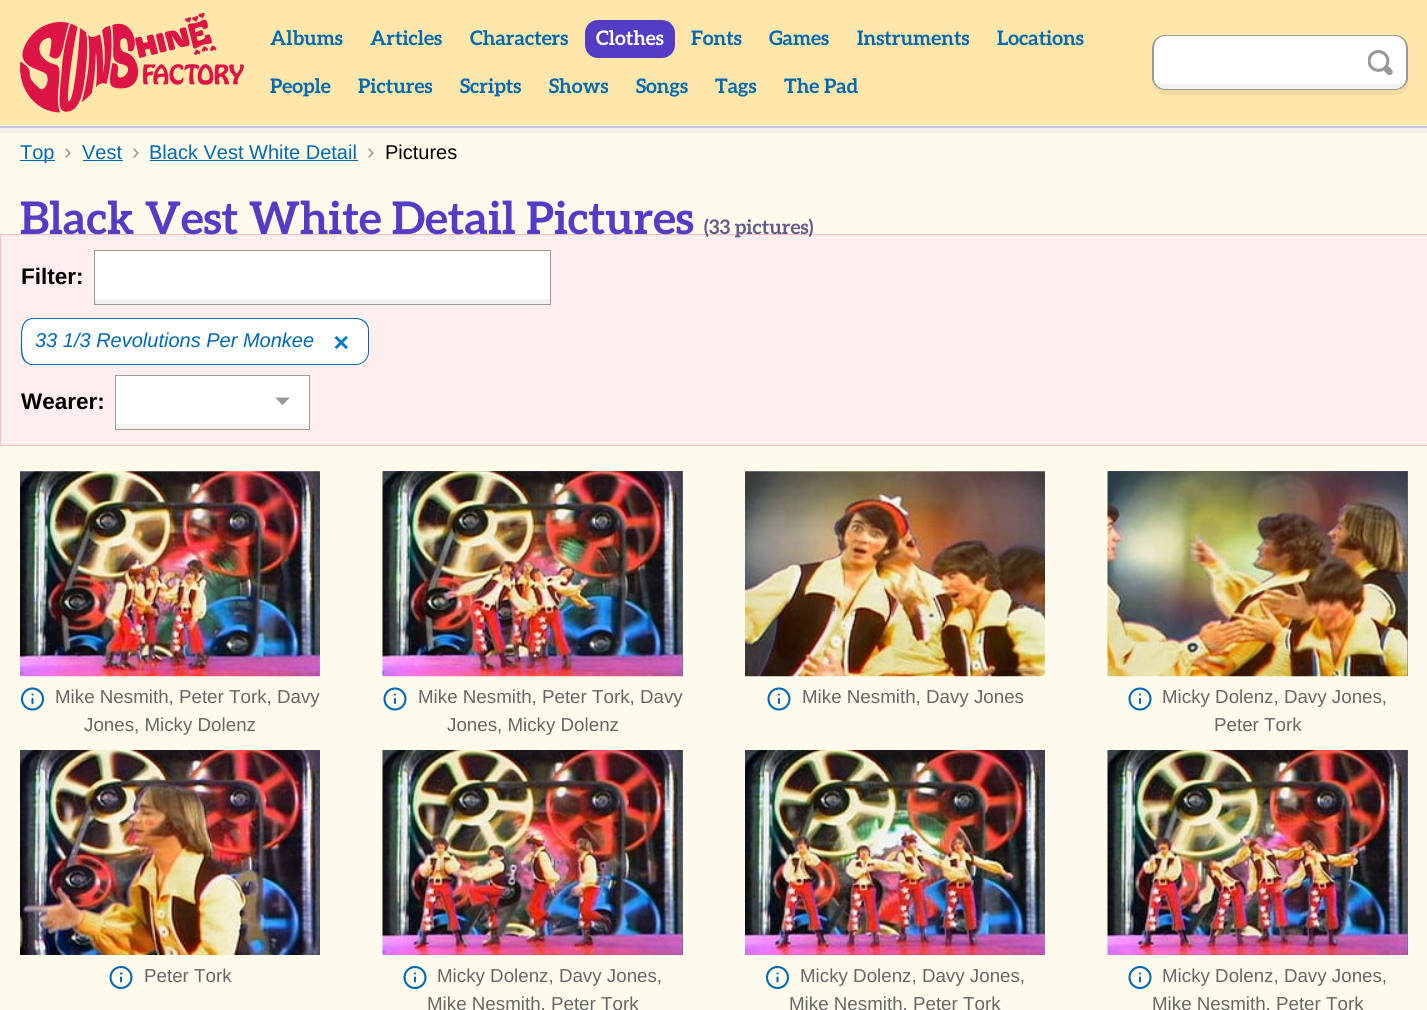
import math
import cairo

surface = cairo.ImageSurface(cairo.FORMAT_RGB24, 1427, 1010)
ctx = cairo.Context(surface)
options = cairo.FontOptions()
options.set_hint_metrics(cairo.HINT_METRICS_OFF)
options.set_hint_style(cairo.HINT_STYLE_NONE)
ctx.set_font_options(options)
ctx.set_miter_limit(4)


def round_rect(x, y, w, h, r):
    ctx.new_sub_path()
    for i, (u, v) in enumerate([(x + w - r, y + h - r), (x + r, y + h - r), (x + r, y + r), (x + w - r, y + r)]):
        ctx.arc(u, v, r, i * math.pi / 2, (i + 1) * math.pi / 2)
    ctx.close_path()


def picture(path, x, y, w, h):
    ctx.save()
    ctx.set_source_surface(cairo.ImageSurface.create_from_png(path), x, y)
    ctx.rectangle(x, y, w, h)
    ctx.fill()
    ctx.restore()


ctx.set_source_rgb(1, 0.984, 0.925)
ctx.paint()
ctx.rectangle(-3, -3, 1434, 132)
ctx.set_source_rgb(0.965, 0.945, 0.918)
ctx.set_line_width(8)
ctx.stroke()
ctx.rectangle(-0.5, -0.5, 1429, 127)
ctx.set_source_rgb(0.808, 0.769, 0.882)
ctx.set_line_width(3)
ctx.stroke()
ctx.rectangle(-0.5, -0.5, 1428, 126)
ctx.set_source_rgb(1, 0.961, 0.863)
ctx.set_line_width(1)
ctx.stroke()
ctx.set_source_rgb(1, 0.902, 0.667)
ctx.rectangle(0, 0, 1427, 125)
ctx.fill()
picture("img1.png", 20, 13, 224, 100)
ctx.select_font_face("Aleo", cairo.FONT_SLANT_NORMAL, cairo.FONT_WEIGHT_BOLD)
ctx.set_font_size(20)
ctx.set_source_rgb(0, 0.412, 0.694)
ctx.move_to(270, 45)
ctx.show_text("Albums")
ctx.move_to(370, 45)
ctx.show_text("Articles")
ctx.move_to(470, 45)
ctx.show_text("Characters")
ctx.set_source_rgb(0.329, 0.235, 0.769)
round_rect(585, 20, 90, 38, 13)
ctx.fill()
ctx.set_source_rgb(1, 1, 1)
ctx.move_to(596, 45)
ctx.show_text("Clothes")
ctx.set_source_rgb(0, 0.412, 0.694)
ctx.move_to(691, 45)
ctx.show_text("Fonts")
ctx.move_to(769, 45)
ctx.show_text("Games")
ctx.move_to(857, 45)
ctx.show_text("Instruments")
ctx.move_to(997, 45)
ctx.show_text("Locations")
ctx.move_to(270, 93)
ctx.show_text("People")
ctx.move_to(358, 93)
ctx.show_text("Pictures")
ctx.move_to(460, 93)
ctx.show_text("Scripts")
ctx.move_to(549, 93)
ctx.show_text("Shows")
ctx.move_to(636, 93)
ctx.show_text("Songs")
ctx.move_to(715, 93)
ctx.show_text("Tags")
ctx.move_to(784, 93)
ctx.show_text("The Pad")
ctx.set_source_rgb(0.949, 0.859, 0.635)
ctx.new_path()
ctx.move_to(1153, 81)
ctx.line_to(1153, 82)
ctx.curve_to(1153, 89, 1159, 95, 1166, 95)
ctx.line_to(1395, 95)
ctx.curve_to(1402, 95, 1408, 89, 1408, 82)
ctx.line_to(1408, 53)
ctx.line_to(1408, 49)
ctx.line_to(1408, 78)
ctx.curve_to(1408, 84, 1402, 90, 1395, 90)
ctx.line_to(1165, 90)
ctx.curve_to(1159, 90, 1155, 86, 1153, 81)
ctx.close_path()
ctx.fill()
ctx.save()
ctx.new_path()
ctx.move_to(1165, 36)
ctx.line_to(1353, 36)
ctx.line_to(1353, 89)
ctx.line_to(1165, 89)
ctx.curve_to(1159, 89, 1154, 84, 1154, 78)
ctx.line_to(1154, 47)
ctx.curve_to(1154, 41, 1159, 36, 1165, 36)
ctx.close_path()
ctx.clip()
ctx.set_source_rgb(0.949, 0.949, 0.949)
ctx.rectangle(1154, 84, 199, 5)
ctx.fill()
ctx.set_source_rgb(1, 1, 1)
ctx.new_path()
ctx.move_to(1165, 36)
ctx.line_to(1353, 36)
ctx.line_to(1353, 84)
ctx.line_to(1154, 84)
ctx.line_to(1154, 47)
ctx.curve_to(1154, 41, 1159, 36, 1165, 36)
ctx.close_path()
ctx.fill()
ctx.restore()
ctx.set_source_rgb(0.6, 0.6, 0.6)
ctx.set_fill_rule(cairo.FILL_RULE_EVEN_ODD)
ctx.new_path()
ctx.move_to(1165, 35)
ctx.line_to(1352, 35)
ctx.line_to(1352, 90)
ctx.line_to(1165, 90)
ctx.curve_to(1158, 90, 1152, 84, 1152, 78)
ctx.line_to(1152, 48)
ctx.curve_to(1152, 41, 1158, 35, 1165, 35)
ctx.close_path()
ctx.move_to(1165, 36)
ctx.line_to(1352, 36)
ctx.line_to(1352, 89)
ctx.line_to(1165, 89)
ctx.curve_to(1159, 89, 1154, 84, 1154, 78)
ctx.line_to(1154, 48)
ctx.curve_to(1154, 41, 1159, 36, 1165, 36)
ctx.close_path()
ctx.fill()
ctx.save()
ctx.set_fill_rule(cairo.FILL_RULE_WINDING)
ctx.new_path()
ctx.move_to(1353, 36)
ctx.line_to(1395, 36)
ctx.curve_to(1401, 36, 1406, 41, 1406, 47)
ctx.line_to(1406, 78)
ctx.curve_to(1406, 84, 1401, 89, 1395, 89)
ctx.line_to(1353, 89)
ctx.close_path()
ctx.clip()
ctx.set_source_rgb(0.949, 0.949, 0.949)
ctx.rectangle(1353, 84, 53, 5)
ctx.fill()
ctx.set_source_rgb(1, 1, 1)
ctx.new_path()
ctx.move_to(1353, 36)
ctx.line_to(1395, 36)
ctx.curve_to(1401, 36, 1406, 41, 1406, 47)
ctx.line_to(1406, 84)
ctx.line_to(1353, 84)
ctx.close_path()
ctx.fill()
ctx.restore()
ctx.new_path()
ctx.move_to(1352, 35)
ctx.line_to(1395, 35)
ctx.curve_to(1402, 35, 1408, 41, 1408, 48)
ctx.line_to(1408, 78)
ctx.curve_to(1408, 84, 1402, 90, 1395, 90)
ctx.line_to(1352, 90)
ctx.close_path()
ctx.move_to(1352, 36)
ctx.line_to(1395, 36)
ctx.curve_to(1401, 36, 1406, 41, 1406, 48)
ctx.line_to(1406, 78)
ctx.curve_to(1406, 84, 1401, 89, 1395, 89)
ctx.line_to(1352, 89)
ctx.close_path()
ctx.fill()
picture("img2.png", 1368, 50, 25, 25)
ctx.set_source_rgb(0, 0.412, 0.694)
ctx.rectangle(20, 160, 35, 1)
ctx.fill()
ctx.select_font_face("Liberation Sans")
ctx.move_to(20, 159)
ctx.show_text("Top")
ctx.set_font_size(22.5)
ctx.set_source_rgb(0.6, 0.6, 0.6)
ctx.move_to(64, 159)
ctx.show_text("›")
ctx.set_font_size(20)
ctx.set_source_rgb(0, 0.412, 0.694)
ctx.move_to(82, 159)
ctx.show_text("Vest")
ctx.rectangle(83, 160, 40, 1)
ctx.fill()
ctx.set_font_size(22.5)
ctx.set_source_rgb(0.6, 0.6, 0.6)
ctx.move_to(132, 159)
ctx.show_text("›")
ctx.set_font_size(20)
ctx.set_source_rgb(0, 0.412, 0.694)
ctx.move_to(149, 159)
ctx.show_text("Black Vest White Detail")
ctx.rectangle(150, 160, 208, 1)
ctx.fill()
ctx.set_font_size(22.5)
ctx.set_source_rgb(0.6, 0.6, 0.6)
ctx.move_to(367, 159)
ctx.show_text("›")
ctx.set_font_size(20)
ctx.set_source_rgb(0, 0, 0)
ctx.move_to(385, 159)
ctx.show_text("Pictures")
ctx.set_source_rgb(1, 0.933, 0.933)
ctx.rectangle(0.5, 234.5, 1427, 211)
ctx.fill_preserve()
ctx.set_source_rgb(1, 0.741, 0.741)
ctx.stroke()
ctx.select_font_face("Aleo", cairo.FONT_SLANT_NORMAL, cairo.FONT_WEIGHT_BOLD)
ctx.set_font_size(45)
ctx.set_source_rgb(0.329, 0.235, 0.769)
ctx.move_to(20, 234)
ctx.show_text("Black Vest White Detail Pictures")
ctx.set_font_size(20)
ctx.set_source_rgb(0.388, 0.357, 0.549)
ctx.move_to(704, 234)
ctx.show_text("(33 pictures)")
ctx.select_font_face("Liberation Sans", cairo.FONT_SLANT_NORMAL, cairo.FONT_WEIGHT_BOLD)
ctx.set_font_size(22.5)
ctx.set_source_rgb(0, 0, 0)
ctx.move_to(21, 284)
ctx.show_text("Filter:")
ctx.set_source_rgb(1, 1, 1)
ctx.rectangle(95, 251, 455, 48)
ctx.fill()
ctx.set_source_rgb(0.949, 0.949, 0.949)
ctx.rectangle(94, 299, 457, 5)
ctx.fill()
ctx.rectangle(94.5, 250.5, 456, 54)
ctx.set_source_rgb(0.6, 0.6, 0.6)
ctx.stroke()
ctx.set_source_rgb(1, 1, 1)
ctx.new_path()
ctx.move_to(34, 319)
ctx.line_to(314, 319)
ctx.line_to(314, 364)
ctx.line_to(34, 364)
ctx.curve_to(28, 364, 23, 359, 23, 353)
ctx.line_to(23, 330)
ctx.curve_to(23, 324, 28, 319, 34, 319)
ctx.close_path()
ctx.fill()
ctx.set_source_rgb(0, 0.412, 0.694)
ctx.new_path()
ctx.move_to(34, 318)
ctx.line_to(314, 318)
ctx.line_to(314, 365)
ctx.line_to(31, 365)
ctx.curve_to(19, 362, 21, 350, 21, 341)
ctx.curve_to(21, 332, 20, 318, 34, 318)
ctx.close_path()
ctx.move_to(34, 319)
ctx.line_to(314, 319)
ctx.line_to(314, 364)
ctx.line_to(31, 364)
ctx.curve_to(21, 361, 22, 349, 22, 341)
ctx.curve_to(22, 333, 21, 319, 34, 319)
ctx.close_path()
ctx.fill()
ctx.select_font_face("Liberation Sans", cairo.FONT_SLANT_ITALIC)
ctx.set_font_size(20)
ctx.move_to(35, 347)
ctx.show_text("33 1/3 Revolutions Per Monkee")
ctx.set_source_rgb(1, 1, 1)
ctx.new_path()
ctx.move_to(314, 319)
ctx.line_to(357, 319)
ctx.curve_to(363, 319, 368, 324, 368, 330)
ctx.line_to(368, 353)
ctx.curve_to(368, 359, 363, 364, 357, 364)
ctx.line_to(314, 364)
ctx.close_path()
ctx.fill()
ctx.set_source_rgb(0, 0.412, 0.694)
ctx.new_path()
ctx.move_to(314, 318)
ctx.line_to(356, 318)
ctx.curve_to(363, 318, 369, 323, 369, 330)
ctx.line_to(369, 352)
ctx.curve_to(369, 359, 363, 365, 356, 365)
ctx.line_to(314, 365)
ctx.close_path()
ctx.move_to(314, 319)
ctx.line_to(356, 319)
ctx.curve_to(362, 319, 368, 324, 368, 330)
ctx.line_to(368, 352)
ctx.curve_to(368, 359, 362, 364, 356, 364)
ctx.line_to(314, 364)
ctx.close_path()
ctx.fill()
picture("img3.png", 334, 335, 14, 15)
ctx.select_font_face("Liberation Sans", cairo.FONT_SLANT_NORMAL, cairo.FONT_WEIGHT_BOLD)
ctx.set_font_size(22.5)
ctx.set_source_rgb(0, 0, 0)
ctx.move_to(21, 409)
ctx.show_text("Wearer:")
ctx.set_source_rgb(1, 1, 1)
ctx.rectangle(116, 376, 193, 48)
ctx.fill()
ctx.set_source_rgb(0.949, 0.949, 0.949)
ctx.rectangle(115, 424, 195, 5)
ctx.fill()
ctx.rectangle(115.5, 375.5, 194, 54)
ctx.set_source_rgb(0.6, 0.6, 0.6)
ctx.stroke()
ctx.set_fill_rule(cairo.FILL_RULE_WINDING)
ctx.new_path()
ctx.move_to(275, 397.5)
ctx.line_to(282.5, 405)
ctx.line_to(290, 397.5)
ctx.close_path()
ctx.fill()
picture("img4.png", 20, 471, 300, 206)
ctx.arc(32.5, 699, 10.5, 0, 2 * math.pi)
ctx.set_source_rgb(0, 0.412, 0.694)
ctx.set_line_width(2.1)
ctx.stroke()
ctx.new_path()
ctx.move_to(32.5, 703)
ctx.line_to(32.5, 699)
ctx.move_to(32.5, 694.5)
ctx.line_to(32.5, 694.5)
ctx.set_line_cap(cairo.LINE_CAP_ROUND)
ctx.set_line_join(cairo.LINE_JOIN_ROUND)
ctx.stroke()
ctx.select_font_face("Liberation Sans")
ctx.set_font_size(18.75)
ctx.set_source_rgb(0.4, 0.4, 0.4)
ctx.move_to(55, 703)
ctx.show_text("Mike Nesmith, Peter Tork, Davy")
ctx.move_to(84, 731)
ctx.show_text("Jones, Micky Dolenz")
ctx.rectangle(383, 471, 300, 205)
ctx.fill()
picture("img5.png", 382, 471, 301, 206)
ctx.arc(395, 699, 10.5, 0, 2 * math.pi)
ctx.set_source_rgb(0, 0.412, 0.694)
ctx.set_line_cap(cairo.LINE_CAP_BUTT)
ctx.set_line_join(cairo.LINE_JOIN_MITER)
ctx.stroke()
ctx.new_path()
ctx.move_to(395, 703)
ctx.line_to(395, 699)
ctx.move_to(395, 694.5)
ctx.line_to(395, 694.5)
ctx.set_line_cap(cairo.LINE_CAP_ROUND)
ctx.set_line_join(cairo.LINE_JOIN_ROUND)
ctx.stroke()
ctx.set_source_rgb(0.4, 0.4, 0.4)
ctx.move_to(418, 703)
ctx.show_text("Mike Nesmith, Peter Tork, Davy")
ctx.move_to(447, 731)
ctx.show_text("Jones, Micky Dolenz")
picture("img6.png", 745, 471, 300, 206)
ctx.arc(779, 699, 10.5, 0, 2 * math.pi)
ctx.set_source_rgb(0, 0.412, 0.694)
ctx.set_line_cap(cairo.LINE_CAP_BUTT)
ctx.set_line_join(cairo.LINE_JOIN_MITER)
ctx.stroke()
ctx.new_path()
ctx.move_to(779, 703)
ctx.line_to(779, 699)
ctx.move_to(779, 694.5)
ctx.line_to(779, 694.5)
ctx.set_line_cap(cairo.LINE_CAP_ROUND)
ctx.set_line_join(cairo.LINE_JOIN_ROUND)
ctx.stroke()
ctx.set_source_rgb(0.4, 0.4, 0.4)
ctx.move_to(802, 703)
ctx.show_text("Mike Nesmith, Davy Jones")
ctx.rectangle(1108, 471, 300, 205)
ctx.fill()
picture("img7.png", 1107, 471, 301, 206)
ctx.arc(1140, 699, 10.5, 0, 2 * math.pi)
ctx.set_source_rgb(0, 0.412, 0.694)
ctx.set_line_cap(cairo.LINE_CAP_BUTT)
ctx.set_line_join(cairo.LINE_JOIN_MITER)
ctx.stroke()
ctx.new_path()
ctx.move_to(1140, 703)
ctx.line_to(1140, 699)
ctx.move_to(1140, 694.5)
ctx.line_to(1140, 694.5)
ctx.set_line_cap(cairo.LINE_CAP_ROUND)
ctx.set_line_join(cairo.LINE_JOIN_ROUND)
ctx.stroke()
ctx.set_source_rgb(0.4, 0.4, 0.4)
ctx.move_to(1162, 703)
ctx.show_text("Micky Dolenz, Davy Jones,")
ctx.move_to(1214, 731)
ctx.show_text("Peter Tork")
picture("img8.png", 20, 750, 300, 205)
ctx.arc(121, 977.5, 10.5, 0, 2 * math.pi)
ctx.set_source_rgb(0, 0.412, 0.694)
ctx.set_line_cap(cairo.LINE_CAP_BUTT)
ctx.set_line_join(cairo.LINE_JOIN_MITER)
ctx.stroke()
ctx.new_path()
ctx.move_to(121, 981.5)
ctx.line_to(121, 977.5)
ctx.move_to(121, 973.5)
ctx.line_to(121.5, 973.5)
ctx.set_line_cap(cairo.LINE_CAP_ROUND)
ctx.set_line_join(cairo.LINE_JOIN_ROUND)
ctx.stroke()
ctx.set_source_rgb(0.4, 0.4, 0.4)
ctx.move_to(144, 982)
ctx.show_text("Peter Tork")
ctx.rectangle(682, 750, 1, 205)
ctx.fill()
picture("img9.png", 382, 750, 301, 205)
ctx.arc(415, 977.5, 10.5, 0, 2 * math.pi)
ctx.set_source_rgb(0, 0.412, 0.694)
ctx.set_line_cap(cairo.LINE_CAP_BUTT)
ctx.set_line_join(cairo.LINE_JOIN_MITER)
ctx.stroke()
ctx.new_path()
ctx.move_to(415, 981.5)
ctx.line_to(415, 977.5)
ctx.move_to(415, 973.5)
ctx.line_to(415, 973.5)
ctx.set_line_cap(cairo.LINE_CAP_ROUND)
ctx.set_line_join(cairo.LINE_JOIN_ROUND)
ctx.stroke()
ctx.set_source_rgb(0.4, 0.4, 0.4)
ctx.move_to(437, 982)
ctx.show_text("Micky Dolenz, Davy Jones,")
ctx.move_to(427, 1010)
ctx.show_text("Mike Nesmith, Peter Tork")
picture("img10.png", 745, 750, 300, 205)
ctx.arc(777.5, 977.5, 10.5, 0, 2 * math.pi)
ctx.set_source_rgb(0, 0.412, 0.694)
ctx.set_line_cap(cairo.LINE_CAP_BUTT)
ctx.set_line_join(cairo.LINE_JOIN_MITER)
ctx.stroke()
ctx.new_path()
ctx.move_to(777.5, 981.5)
ctx.line_to(777.5, 977.5)
ctx.move_to(777.5, 973.5)
ctx.line_to(777.5, 973.5)
ctx.set_line_cap(cairo.LINE_CAP_ROUND)
ctx.set_line_join(cairo.LINE_JOIN_ROUND)
ctx.stroke()
ctx.set_source_rgb(0.4, 0.4, 0.4)
ctx.move_to(800, 982)
ctx.show_text("Micky Dolenz, Davy Jones,")
ctx.move_to(789, 1010)
ctx.show_text("Mike Nesmith, Peter Tork")
ctx.rectangle(1407, 750, 1, 205)
ctx.fill()
picture("img11.png", 1107, 750, 301, 205)
ctx.arc(1140, 977.5, 10.5, 0, 2 * math.pi)
ctx.set_source_rgb(0, 0.412, 0.694)
ctx.set_line_cap(cairo.LINE_CAP_BUTT)
ctx.set_line_join(cairo.LINE_JOIN_MITER)
ctx.stroke()
ctx.new_path()
ctx.move_to(1140, 981.5)
ctx.line_to(1140, 977.5)
ctx.move_to(1140, 973.5)
ctx.line_to(1140, 973.5)
ctx.set_line_cap(cairo.LINE_CAP_ROUND)
ctx.set_line_join(cairo.LINE_JOIN_ROUND)
ctx.stroke()
ctx.set_source_rgb(0.4, 0.4, 0.4)
ctx.move_to(1162, 982)
ctx.show_text("Micky Dolenz, Davy Jones,")
ctx.move_to(1152, 1010)
ctx.show_text("Mike Nesmith, Peter Tork")
surface.write_to_png("page.png")
